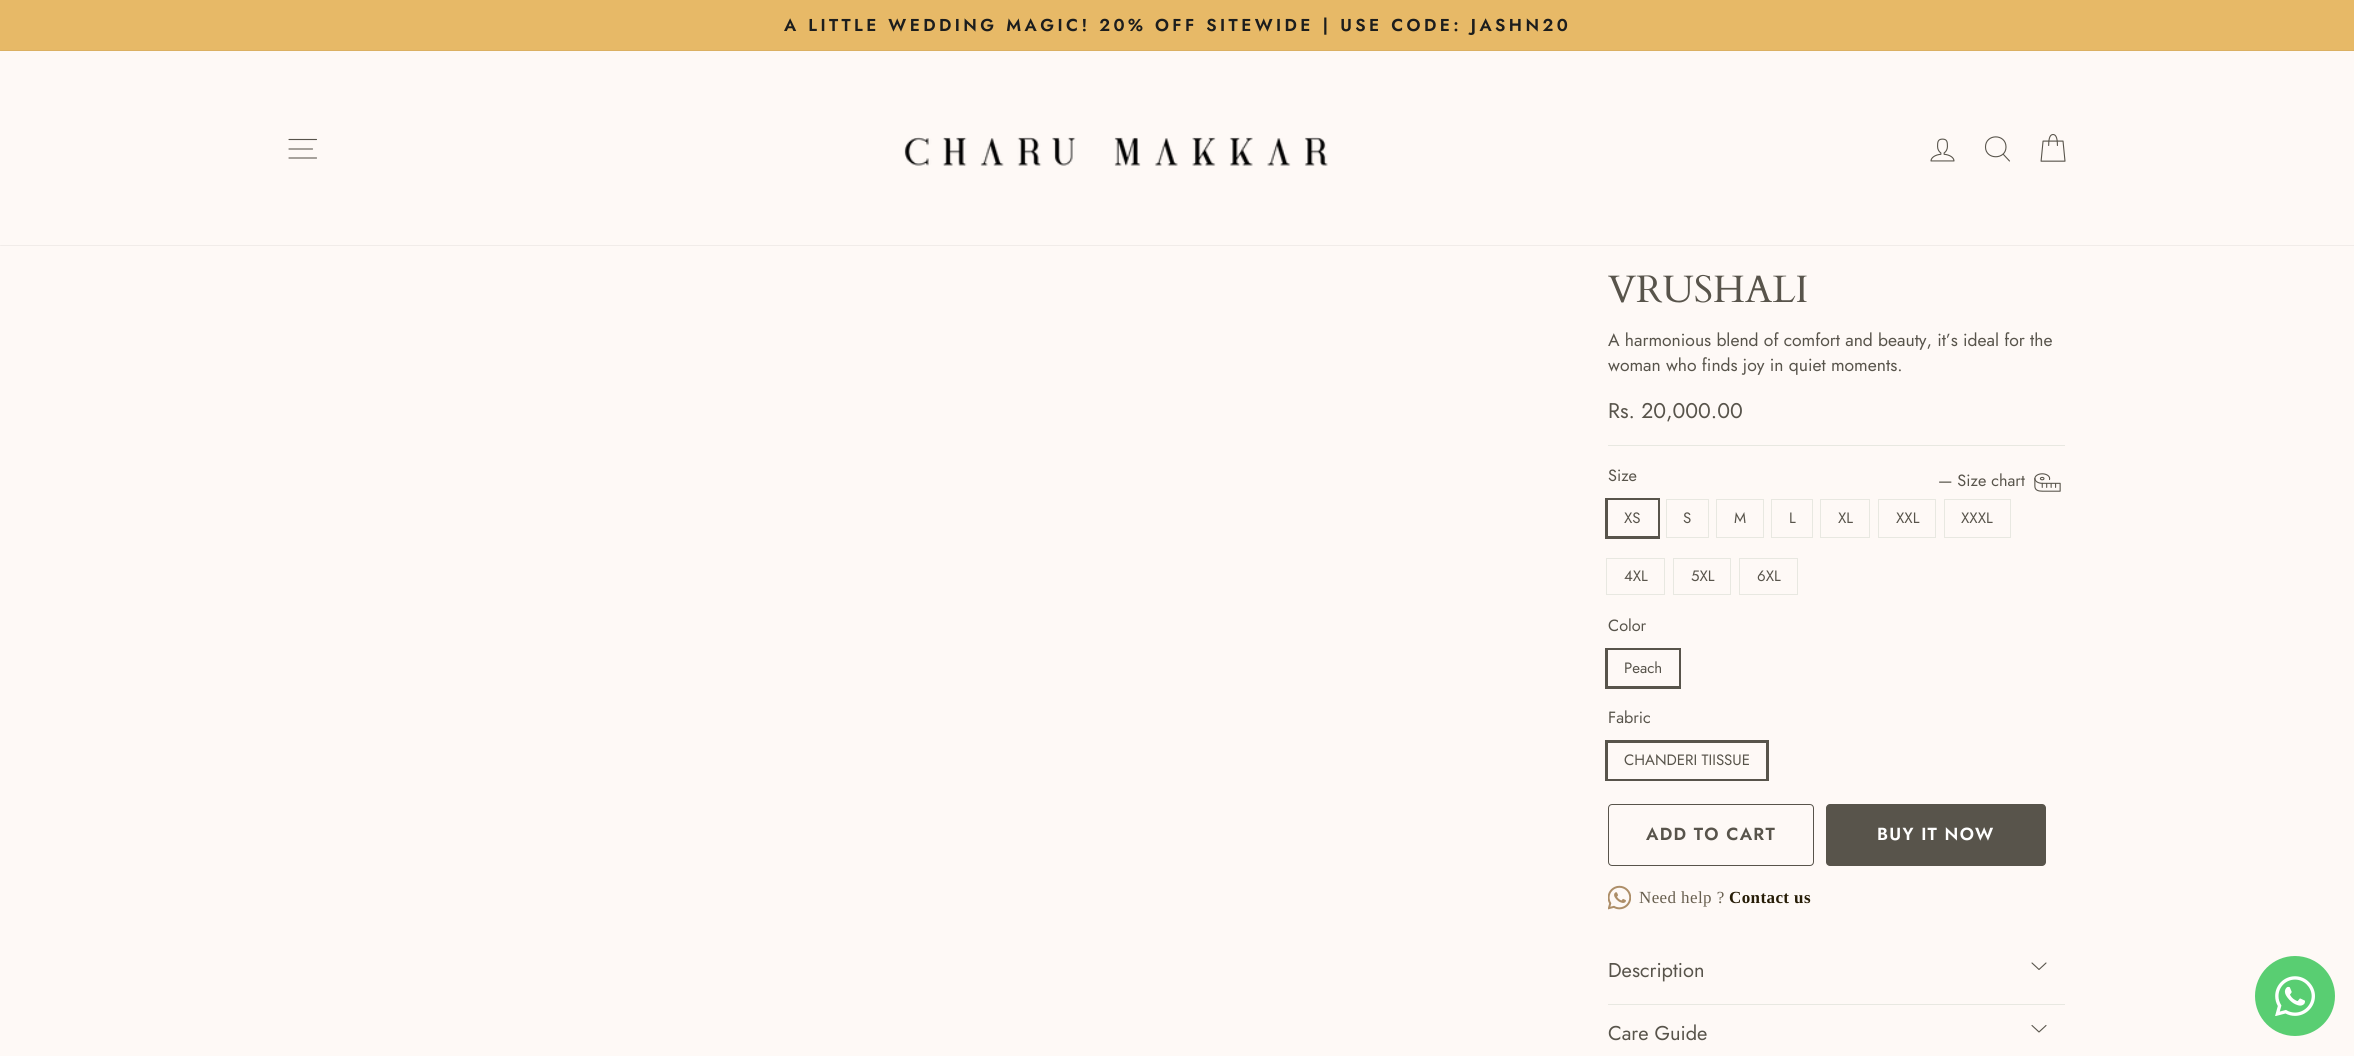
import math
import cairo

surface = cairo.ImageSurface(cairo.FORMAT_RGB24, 2354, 1056)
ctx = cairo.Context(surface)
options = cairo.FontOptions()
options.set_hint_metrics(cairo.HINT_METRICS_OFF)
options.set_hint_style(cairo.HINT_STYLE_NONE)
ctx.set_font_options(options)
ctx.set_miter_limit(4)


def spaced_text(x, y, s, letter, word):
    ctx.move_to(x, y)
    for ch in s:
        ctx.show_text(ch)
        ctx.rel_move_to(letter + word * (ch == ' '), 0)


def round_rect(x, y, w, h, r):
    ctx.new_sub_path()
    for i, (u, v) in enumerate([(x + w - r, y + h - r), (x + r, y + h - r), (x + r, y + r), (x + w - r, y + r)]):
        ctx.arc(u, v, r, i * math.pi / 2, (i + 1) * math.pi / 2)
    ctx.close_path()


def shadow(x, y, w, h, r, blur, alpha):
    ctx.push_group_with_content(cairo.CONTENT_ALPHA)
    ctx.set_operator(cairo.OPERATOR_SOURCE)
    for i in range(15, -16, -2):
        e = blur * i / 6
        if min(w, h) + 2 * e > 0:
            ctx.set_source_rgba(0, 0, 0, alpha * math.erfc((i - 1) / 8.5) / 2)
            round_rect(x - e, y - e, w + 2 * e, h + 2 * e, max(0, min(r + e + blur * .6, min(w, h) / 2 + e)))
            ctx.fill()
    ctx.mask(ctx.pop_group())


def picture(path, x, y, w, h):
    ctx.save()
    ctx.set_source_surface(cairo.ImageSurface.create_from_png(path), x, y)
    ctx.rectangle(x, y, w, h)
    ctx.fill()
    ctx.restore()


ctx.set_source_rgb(0.996, 0.976, 0.961)
ctx.paint()
ctx.set_source_rgb(0.906, 0.725, 0.404)
ctx.rectangle(0, 0, 2354, 51)
ctx.fill()
ctx.select_font_face("Jost SemiBold")
ctx.set_font_size(17.2)
ctx.set_source_rgb(0.11, 0.114, 0.114)
spaced_text(784, 31, "A LITTLE WEDDING MAGIC! 20% OFF SITEWIDE | USE CODE: JASHN20", 3.45, 0)
ctx.set_source_rgb(0, 0, 0)
shadow(0, 51, 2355, 194, 0, 0.5, 0.2)
ctx.set_source_rgb(0.996, 0.976, 0.961)
ctx.rectangle(0, 51, 2354, 194)
ctx.fill()
ctx.new_path()
ctx.move_to(289, 139.5)
ctx.line_to(316.5, 139.5)
ctx.move_to(289, 149)
ctx.line_to(312.5, 149)
ctx.move_to(289, 158)
ctx.line_to(316.5, 158)
ctx.set_source_rgb(0.345, 0.329, 0.294)
ctx.set_line_width(1.1)
ctx.set_line_cap(cairo.LINE_CAP_ROUND)
ctx.set_line_join(cairo.LINE_JOIN_ROUND)
ctx.stroke()
picture("img1.png", 904, 137, 424, 29)
picture("img2.png", 1930, 138, 25, 24)
ctx.new_path()
ctx.move_to(2006, 147)
ctx.curve_to(2006, 160, 1985.5, 160, 1985.5, 147)
ctx.curve_to(1985.5, 133.5, 2006, 133.5, 2006, 147)
ctx.close_path()
ctx.move_to(2009.5, 161)
ctx.line_to(2003, 154)
ctx.stroke()
picture("img3.png", 2040, 134, 26, 28)
ctx.select_font_face("Cardo")
ctx.set_font_size(38.25)
ctx.move_to(1608, 302)
ctx.show_text("VRUSHALI")
ctx.select_font_face("Jost")
ctx.set_font_size(17.5)
ctx.move_to(1608, 346)
ctx.show_text("A harmonious blend of comfort and beauty, it’s ideal for the")
ctx.move_to(1608, 371)
ctx.show_text("woman who finds joy in quiet moments.")
ctx.set_font_size(21.25)
ctx.move_to(1608, 418)
ctx.show_text("Rs. 20,000.00")
ctx.set_source_rgb(0.91, 0.91, 0.882)
ctx.rectangle(1608, 445, 457, 1)
ctx.fill()
ctx.set_font_size(16.25)
ctx.set_source_rgb(0.345, 0.329, 0.294)
ctx.move_to(1608, 481)
ctx.show_text("Size")
ctx.move_to(1938, 486)
ctx.show_text("— Size chart")
picture("img4.png", 2034, 473, 27, 19)
ctx.rectangle(1606.5, 499.5, 52, 38)
ctx.set_line_width(3)
ctx.set_line_cap(cairo.LINE_CAP_BUTT)
ctx.set_line_join(cairo.LINE_JOIN_MITER)
ctx.stroke()
ctx.set_source_rgb(0.996, 0.976, 0.961)
ctx.rectangle(1608, 500, 50, 36)
ctx.fill()
ctx.set_font_size(15)
ctx.set_source_rgb(0.345, 0.329, 0.294)
ctx.move_to(1624, 523)
ctx.show_text("XS")
ctx.rectangle(1666.5, 499.5, 42, 38)
ctx.set_source_rgb(0.91, 0.91, 0.882)
ctx.set_line_width(1)
ctx.stroke()
ctx.set_source_rgb(0.345, 0.329, 0.294)
ctx.move_to(1683, 523)
ctx.show_text("S")
ctx.rectangle(1716.5, 499.5, 47, 38)
ctx.set_source_rgb(0.91, 0.91, 0.882)
ctx.stroke()
ctx.set_source_rgb(0.345, 0.329, 0.294)
ctx.move_to(1734, 523)
ctx.show_text("M")
ctx.rectangle(1771.5, 499.5, 41, 38)
ctx.set_source_rgb(0.91, 0.91, 0.882)
ctx.stroke()
ctx.set_source_rgb(0.345, 0.329, 0.294)
ctx.move_to(1789, 523)
ctx.show_text("L")
ctx.rectangle(1820.5, 499.5, 49, 38)
ctx.set_source_rgb(0.91, 0.91, 0.882)
ctx.stroke()
ctx.set_source_rgb(0.345, 0.329, 0.294)
ctx.move_to(1838, 523)
ctx.show_text("XL")
ctx.rectangle(1878.5, 499.5, 57, 38)
ctx.set_source_rgb(0.91, 0.91, 0.882)
ctx.stroke()
ctx.set_source_rgb(0.345, 0.329, 0.294)
ctx.move_to(1896, 523)
ctx.show_text("XXL")
ctx.rectangle(1944.5, 499.5, 66, 38)
ctx.set_source_rgb(0.91, 0.91, 0.882)
ctx.stroke()
ctx.set_source_rgb(0.345, 0.329, 0.294)
ctx.move_to(1961, 523)
ctx.show_text("XXXL")
ctx.rectangle(1606.5, 558.5, 58, 36)
ctx.set_source_rgb(0.91, 0.91, 0.882)
ctx.stroke()
ctx.set_source_rgb(0.345, 0.329, 0.294)
ctx.move_to(1624, 581)
ctx.show_text("4XL")
ctx.rectangle(1673.5, 558.5, 57, 36)
ctx.set_source_rgb(0.91, 0.91, 0.882)
ctx.stroke()
ctx.set_source_rgb(0.345, 0.329, 0.294)
ctx.move_to(1691, 581)
ctx.show_text("5XL")
ctx.rectangle(1739.5, 558.5, 58, 36)
ctx.set_source_rgb(0.91, 0.91, 0.882)
ctx.stroke()
ctx.set_source_rgb(0.345, 0.329, 0.294)
ctx.move_to(1757, 581)
ctx.show_text("6XL")
ctx.set_font_size(16.25)
ctx.move_to(1608, 631)
ctx.show_text("Color")
ctx.rectangle(1606.5, 649.5, 73, 38)
ctx.set_line_width(3)
ctx.stroke()
ctx.set_source_rgb(0.996, 0.976, 0.961)
ctx.rectangle(1608, 650, 71, 36)
ctx.fill()
ctx.set_font_size(15)
ctx.set_source_rgb(0.345, 0.329, 0.294)
ctx.move_to(1624, 673)
ctx.show_text("Peach")
ctx.set_font_size(16.25)
ctx.move_to(1608, 723)
ctx.show_text("Fabric")
ctx.rectangle(1606.5, 741.5, 161, 38)
ctx.stroke()
ctx.set_source_rgb(0.996, 0.976, 0.961)
ctx.rectangle(1608, 778, 158, 1)
ctx.fill()
ctx.set_font_size(15)
ctx.set_source_rgb(0.345, 0.329, 0.294)
ctx.move_to(1624, 765)
ctx.show_text("CHANDERI TIISSUE")
round_rect(1608.5, 804.5, 205, 61, 3.5)
ctx.set_line_width(1)
ctx.stroke()
ctx.select_font_face("Jost SemiBold")
ctx.set_font_size(17.5)
spaced_text(1646, 840, "ADD TO CART", 1.25, 0)
round_rect(1826, 804, 220, 62, 4)
ctx.fill()
ctx.set_source_rgb(1, 1, 1)
spaced_text(1877, 840, "BUY IT NOW", 1.25, 0)
picture("img5.png", 1608, 885, 23, 25)
ctx.select_font_face("Liberation Serif")
ctx.set_font_size(17)
ctx.set_source_rgb(0.408, 0.373, 0.31)
spaced_text(1639, 903, "Need help ?", 0.4, 0)
ctx.select_font_face("Liberation Serif", cairo.FONT_SLANT_NORMAL, cairo.FONT_WEIGHT_BOLD)
ctx.set_source_rgb(0.153, 0.114, 0.031)
spaced_text(1729, 903, "Contact us", 0.4, 0)
ctx.set_source_rgb(0.91, 0.91, 0.882)
ctx.rectangle(1608, 1004, 457, 1)
ctx.fill()
ctx.select_font_face("Jost")
ctx.set_font_size(20)
ctx.set_source_rgb(0.345, 0.329, 0.294)
ctx.move_to(1608, 977)
ctx.show_text("Description")
ctx.new_path()
ctx.move_to(2032, 963)
ctx.line_to(2039, 969.5)
ctx.line_to(2046, 963)
ctx.set_line_width(1.1)
ctx.set_line_cap(cairo.LINE_CAP_ROUND)
ctx.set_line_join(cairo.LINE_JOIN_ROUND)
ctx.stroke()
ctx.move_to(1608, 1040)
ctx.show_text("Care Guide")
ctx.new_path()
ctx.move_to(2032, 1025.5)
ctx.line_to(2039, 1032)
ctx.line_to(2046, 1025.5)
ctx.stroke()
ctx.set_source_rgb(0.349, 0.808, 0.447)
ctx.arc(2295, 996, 40, 0, 2 * math.pi)
ctx.fill()
picture("img6.png", 2275, 976, 40, 40)
surface.write_to_png("page.png")
